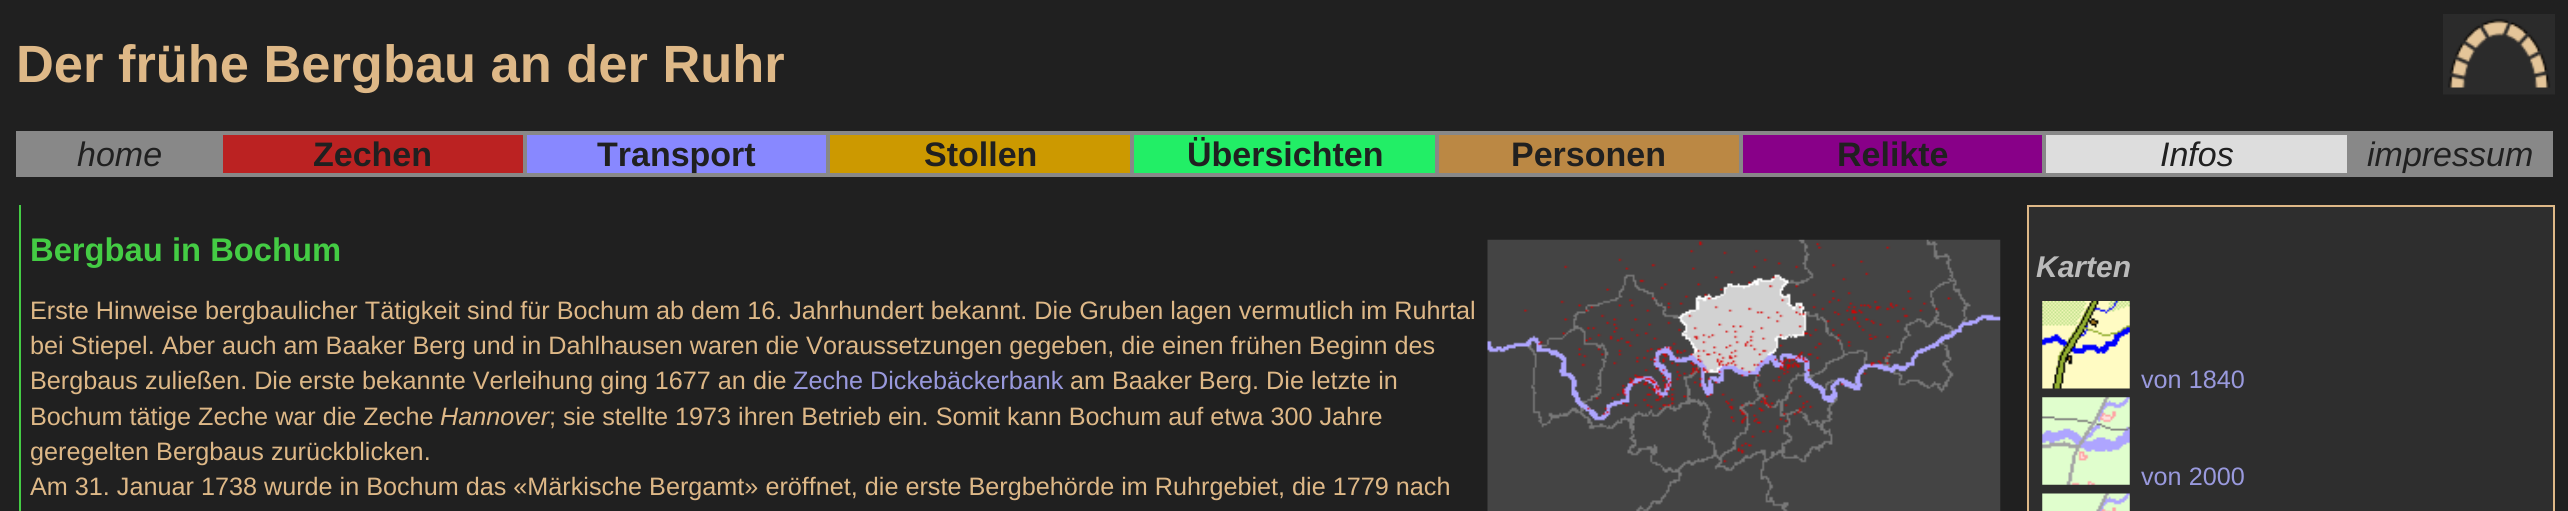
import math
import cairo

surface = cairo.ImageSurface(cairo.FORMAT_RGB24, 2568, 511)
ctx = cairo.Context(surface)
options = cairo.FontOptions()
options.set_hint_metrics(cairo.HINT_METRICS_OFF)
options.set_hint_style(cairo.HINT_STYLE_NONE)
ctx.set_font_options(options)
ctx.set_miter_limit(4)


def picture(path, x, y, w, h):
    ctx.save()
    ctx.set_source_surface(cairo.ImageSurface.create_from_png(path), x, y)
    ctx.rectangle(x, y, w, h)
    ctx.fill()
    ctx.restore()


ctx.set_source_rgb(0.125, 0.125, 0.125)
ctx.paint()
picture("img1.png", 2443, 14, 112, 81)
ctx.select_font_face("Liberation Sans", cairo.FONT_SLANT_NORMAL, cairo.FONT_WEIGHT_BOLD)
ctx.set_font_size(52.4)
ctx.set_source_rgb(0.871, 0.722, 0.529)
ctx.move_to(16, 82)
ctx.show_text("Der frühe Bergbau an der Ruhr")
ctx.rectangle(17, 132, 2535, 44)
ctx.set_source_rgb(0.533, 0.533, 0.533)
ctx.stroke()
ctx.rectangle(18, 133, 203, 42)
ctx.fill()
ctx.select_font_face("Liberation Sans", cairo.FONT_SLANT_ITALIC)
ctx.set_font_size(34)
ctx.set_source_rgb(0.125, 0.125, 0.125)
ctx.move_to(77, 166)
ctx.show_text("home")
ctx.set_source_rgb(0.733, 0.133, 0.133)
ctx.rectangle(222, 134, 302, 40)
ctx.fill_preserve()
ctx.set_source_rgb(0.533, 0.533, 0.533)
ctx.stroke()
ctx.select_font_face("Liberation Sans", cairo.FONT_SLANT_NORMAL, cairo.FONT_WEIGHT_BOLD)
ctx.set_source_rgb(0.125, 0.125, 0.125)
ctx.move_to(313, 166)
ctx.show_text("Zechen")
ctx.set_source_rgb(0.533, 0.533, 1)
ctx.rectangle(526, 134, 301, 40)
ctx.fill_preserve()
ctx.set_source_rgb(0.533, 0.533, 0.533)
ctx.stroke()
ctx.set_source_rgb(0.125, 0.125, 0.125)
ctx.move_to(597, 166)
ctx.show_text("Transport")
ctx.set_source_rgb(0.8, 0.6, 0)
ctx.rectangle(829, 134, 302, 40)
ctx.fill_preserve()
ctx.set_source_rgb(0.533, 0.533, 0.533)
ctx.stroke()
ctx.set_source_rgb(0.125, 0.125, 0.125)
ctx.move_to(924, 166)
ctx.show_text("Stollen")
ctx.set_source_rgb(0.133, 0.933, 0.4)
ctx.rectangle(1133, 134, 303, 40)
ctx.fill_preserve()
ctx.set_source_rgb(0.533, 0.533, 0.533)
ctx.stroke()
ctx.set_source_rgb(0.125, 0.125, 0.125)
ctx.move_to(1187, 166)
ctx.show_text("Übersichten")
ctx.set_source_rgb(0.733, 0.533, 0.267)
ctx.rectangle(1438, 134, 302, 40)
ctx.fill_preserve()
ctx.set_source_rgb(0.533, 0.533, 0.533)
ctx.stroke()
ctx.set_source_rgb(0.125, 0.125, 0.125)
ctx.move_to(1511, 166)
ctx.show_text("Personen")
ctx.set_source_rgb(0.533, 0, 0.533)
ctx.rectangle(1742, 134, 301, 40)
ctx.fill_preserve()
ctx.set_source_rgb(0.533, 0.533, 0.533)
ctx.stroke()
ctx.set_source_rgb(0.125, 0.125, 0.125)
ctx.move_to(1837, 166)
ctx.show_text("Relikte")
ctx.set_source_rgb(0.867, 0.867, 0.867)
ctx.rectangle(2045, 134, 303, 40)
ctx.fill_preserve()
ctx.set_source_rgb(0.533, 0.533, 0.533)
ctx.stroke()
ctx.select_font_face("Liberation Sans", cairo.FONT_SLANT_ITALIC)
ctx.set_source_rgb(0.125, 0.125, 0.125)
ctx.move_to(2160, 166)
ctx.show_text("Infos")
ctx.set_source_rgb(0.533, 0.533, 0.533)
ctx.rectangle(2349, 133, 202, 42)
ctx.fill()
ctx.set_source_rgb(0.125, 0.125, 0.125)
ctx.move_to(2367, 166)
ctx.show_text("impressum")
ctx.set_source_rgb(0.267, 0.8, 0.267)
ctx.rectangle(19, 205, 2, 306)
ctx.fill()
ctx.select_font_face("Liberation Sans", cairo.FONT_SLANT_NORMAL, cairo.FONT_WEIGHT_BOLD)
ctx.set_font_size(32.75)
ctx.move_to(30, 261)
ctx.show_text("Bergbau in Bochum")
picture("img2.png", 1487, 239, 514, 272)
ctx.select_font_face("Liberation Sans")
ctx.set_font_size(25.2)
ctx.set_source_rgb(0.871, 0.722, 0.529)
ctx.move_to(30, 319)
ctx.show_text("Erste Hinweise bergbaulicher Tätigkeit sind für Bochum ab dem 16. Jahrhundert bekannt. Die Gruben lagen vermutlich im Ruhrtal")
ctx.move_to(30, 354)
ctx.show_text("bei Stiepel. Aber auch am Baaker Berg und in Dahlhausen waren die Voraussetzungen gegeben, die einen frühen Beginn des")
ctx.move_to(30, 389)
ctx.show_text("Bergbaus zuließen. Die erste bekannte Verleihung ging 1677 an die")
ctx.set_source_rgb(0.6, 0.6, 0.867)
ctx.move_to(793, 389)
ctx.show_text("Zeche Dickebäckerbank")
ctx.set_source_rgb(0.871, 0.722, 0.529)
ctx.move_to(1070, 389)
ctx.show_text("am Baaker Berg. Die letzte in")
ctx.move_to(30, 425)
ctx.show_text("Bochum tätige Zeche war die Zeche")
ctx.select_font_face("Liberation Sans", cairo.FONT_SLANT_ITALIC)
ctx.move_to(440, 425)
ctx.show_text("Hannover")
ctx.select_font_face("Liberation Sans")
ctx.move_to(549, 425)
ctx.show_text("; sie stellte 1973 ihren Betrieb ein. Somit kann Bochum auf etwa 300 Jahre")
ctx.move_to(30, 460)
ctx.show_text("geregelten Bergbaus zurückblicken.")
ctx.move_to(30, 495)
ctx.show_text("Am 31. Januar 1738 wurde in Bochum das «Märkische Bergamt» eröffnet, die erste Bergbehörde im Ruhrgebiet, die 1779 nach")
ctx.set_source_rgb(0.18, 0.18, 0.18)
ctx.rectangle(2028, 206, 526, 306)
ctx.fill_preserve()
ctx.set_source_rgb(0.871, 0.722, 0.529)
ctx.stroke()
ctx.select_font_face("Liberation Sans", cairo.FONT_SLANT_ITALIC, cairo.FONT_WEIGHT_BOLD)
ctx.set_font_size(30)
ctx.set_source_rgb(0.733, 0.733, 0.733)
ctx.move_to(2036, 277)
ctx.show_text("Karten")
picture("img3.png", 2042, 301, 88, 88)
ctx.select_font_face("Liberation Sans")
ctx.set_font_size(25.2)
ctx.set_source_rgb(0.6, 0.6, 0.867)
ctx.move_to(2141, 388)
ctx.show_text("von 1840")
picture("img4.png", 2042, 397, 88, 88)
ctx.move_to(2141, 485)
ctx.show_text("von 2000")
picture("img5.png", 2042, 493, 88, 18)
surface.write_to_png("page.png")
